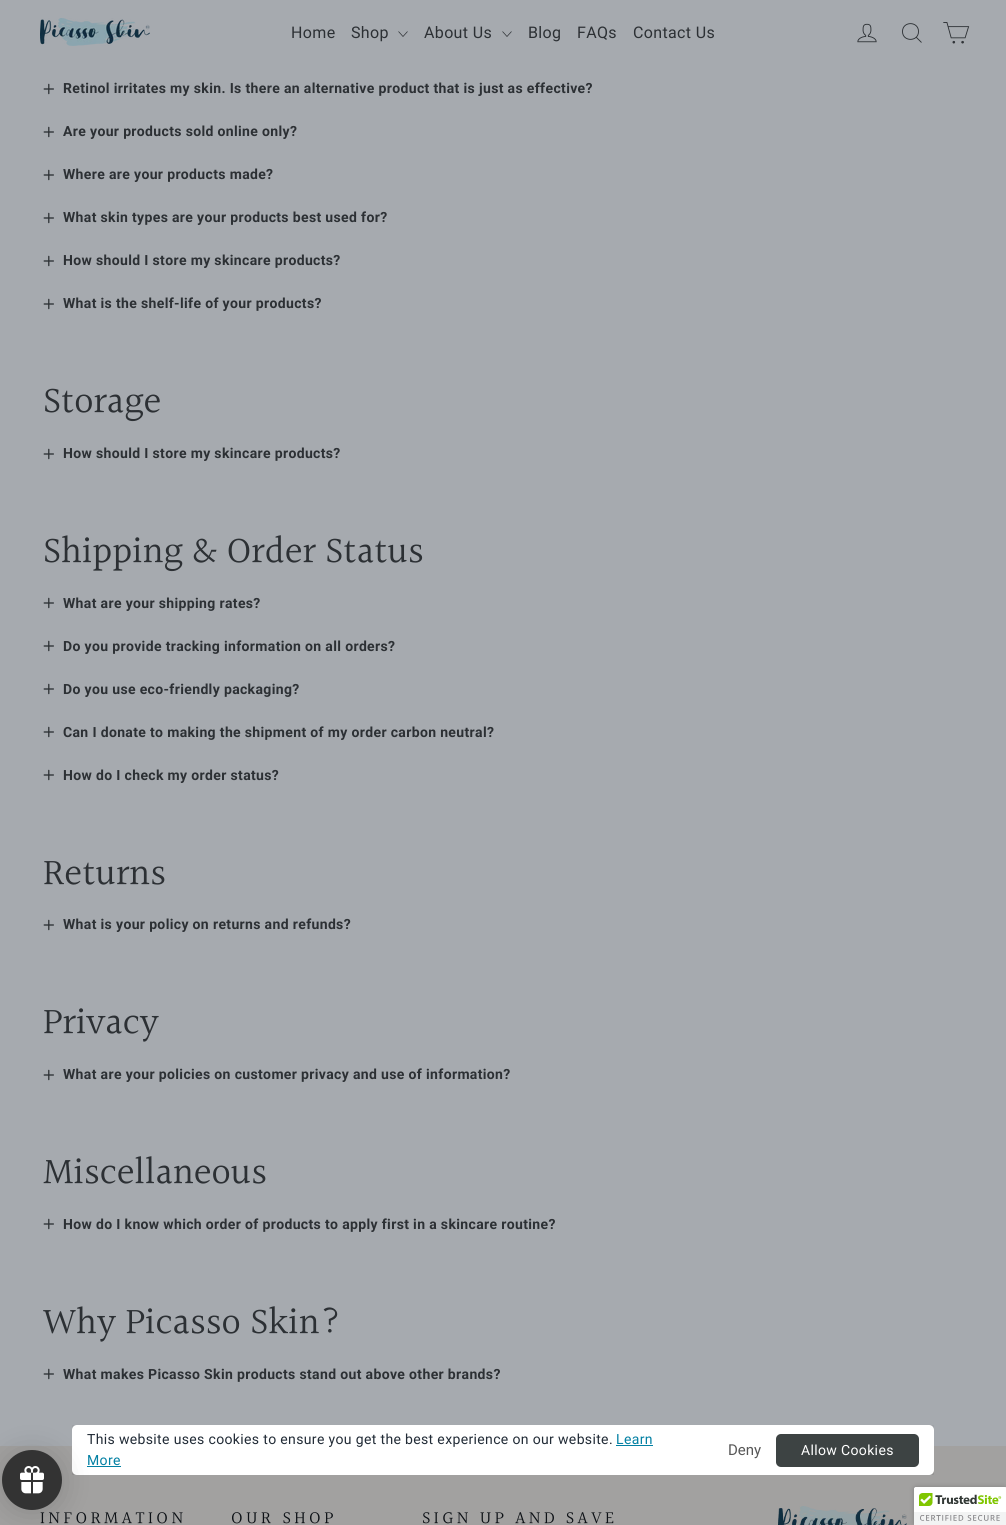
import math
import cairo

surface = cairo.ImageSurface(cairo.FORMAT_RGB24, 1006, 1525)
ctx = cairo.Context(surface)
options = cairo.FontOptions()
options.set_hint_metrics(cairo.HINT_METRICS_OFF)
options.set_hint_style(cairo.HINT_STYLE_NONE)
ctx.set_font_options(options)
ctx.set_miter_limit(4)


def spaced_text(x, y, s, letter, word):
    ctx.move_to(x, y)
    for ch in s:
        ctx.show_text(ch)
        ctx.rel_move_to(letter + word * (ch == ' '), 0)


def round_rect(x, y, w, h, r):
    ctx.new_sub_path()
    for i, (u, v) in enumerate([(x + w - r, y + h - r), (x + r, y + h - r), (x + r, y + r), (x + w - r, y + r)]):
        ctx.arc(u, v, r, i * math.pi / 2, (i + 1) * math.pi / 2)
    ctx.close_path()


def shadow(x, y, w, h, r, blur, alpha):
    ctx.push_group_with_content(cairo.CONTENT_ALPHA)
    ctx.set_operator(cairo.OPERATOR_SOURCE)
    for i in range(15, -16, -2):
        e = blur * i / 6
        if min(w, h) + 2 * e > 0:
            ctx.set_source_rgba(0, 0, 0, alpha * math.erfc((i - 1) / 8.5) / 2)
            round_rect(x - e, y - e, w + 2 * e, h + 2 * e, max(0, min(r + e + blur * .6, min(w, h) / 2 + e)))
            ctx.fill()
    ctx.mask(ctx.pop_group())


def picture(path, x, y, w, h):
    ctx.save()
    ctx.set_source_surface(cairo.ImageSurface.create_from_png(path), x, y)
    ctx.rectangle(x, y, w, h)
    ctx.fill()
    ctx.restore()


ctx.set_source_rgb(0.651, 0.667, 0.686)
ctx.paint()
picture("img1.png", 40, 18, 110, 28)
ctx.select_font_face("Roboto")
ctx.set_font_size(16)
ctx.set_source_rgb(0.173, 0.188, 0.204)
spaced_text(291, 38, "Home", 0.35, 0)
spaced_text(351, 38, "Shop", 0.35, 0)
ctx.new_path()
ctx.move_to(398.5, 31.5)
ctx.line_to(403, 36.5)
ctx.line_to(407.5, 31.5)
ctx.set_line_width(0.7)
ctx.stroke()
spaced_text(424, 38, "About Us", 0.35, 0)
ctx.new_path()
ctx.move_to(502.5, 31.5)
ctx.line_to(507, 36.5)
ctx.line_to(511.5, 31.5)
ctx.stroke()
spaced_text(528, 38, "Blog", 0.35, 0)
spaced_text(577, 38, "FAQs", 0.35, 0)
spaced_text(633, 38, "Contact Us", 0.35, 0)
picture("img2.png", 857, 23, 20, 20)
ctx.new_path()
ctx.move_to(918.5, 31.5)
ctx.curve_to(918.5, 42, 902.5, 42, 902.5, 31.5)
ctx.curve_to(902.5, 21, 918.5, 21, 918.5, 31.5)
ctx.close_path()
ctx.move_to(921.5, 42.5)
ctx.line_to(916.5, 37.5)
ctx.set_line_width(0.9)
ctx.stroke()
picture("img3.png", 943, 22, 27, 22)
picture("img4.png", 43, 83, 11, 12)
ctx.select_font_face("Roboto", cairo.FONT_SLANT_NORMAL, cairo.FONT_WEIGHT_BOLD)
ctx.set_font_size(14)
spaced_text(63, 93, "Retinol irritates my skin. Is there an alternative product that is just as effective?", 0.35, 0)
picture("img4.png", 43, 126, 11, 12)
spaced_text(63, 136, "Are your products sold online only?", 0.35, 0)
picture("img4.png", 43, 169, 11, 12)
spaced_text(63, 179, "Where are your products made?", 0.35, 0)
picture("img4.png", 43, 212, 11, 12)
spaced_text(63, 222, "What skin types are your products best used for?", 0.35, 0)
picture("img4.png", 43, 255, 11, 12)
spaced_text(63, 265, "How should I store my skincare products?", 0.35, 0)
picture("img4.png", 43, 298, 11, 12)
spaced_text(63, 308, "What is the shelf-life of your products?", 0.35, 0)
ctx.select_font_face("Halant")
ctx.set_font_size(37.75)
ctx.move_to(43, 414)
ctx.show_text("Storage")
picture("img4.png", 43, 448, 11, 12)
ctx.select_font_face("Roboto", cairo.FONT_SLANT_NORMAL, cairo.FONT_WEIGHT_BOLD)
ctx.set_font_size(14)
spaced_text(63, 458, "How should I store my skincare products?", 0.35, 0)
ctx.select_font_face("Halant")
ctx.set_font_size(37.75)
ctx.move_to(43, 564)
ctx.show_text("Shipping & Order Status")
picture("img4.png", 43, 597, 11, 12)
ctx.select_font_face("Roboto", cairo.FONT_SLANT_NORMAL, cairo.FONT_WEIGHT_BOLD)
ctx.set_font_size(14)
spaced_text(63, 608, "What are your shipping rates?", 0.35, 0)
picture("img4.png", 43, 640, 11, 12)
spaced_text(63, 651, "Do you provide tracking information on all orders?", 0.35, 0)
picture("img4.png", 43, 683, 11, 12)
spaced_text(63, 694, "Do you use eco-friendly packaging?", 0.35, 0)
picture("img4.png", 43, 726, 11, 12)
spaced_text(63, 737, "Can I donate to making the shipment of my order carbon neutral?", 0.35, 0)
picture("img4.png", 43, 769, 11, 12)
spaced_text(63, 780, "How do I check my order status?", 0.35, 0)
ctx.select_font_face("Halant")
ctx.set_font_size(37.75)
ctx.move_to(43, 886)
ctx.show_text("Returns")
picture("img4.png", 43, 919, 11, 12)
ctx.select_font_face("Roboto", cairo.FONT_SLANT_NORMAL, cairo.FONT_WEIGHT_BOLD)
ctx.set_font_size(14)
spaced_text(63, 929, "What is your policy on returns and refunds?", 0.35, 0)
ctx.select_font_face("Halant")
ctx.set_font_size(37.75)
ctx.move_to(43, 1035)
ctx.show_text("Privacy")
picture("img4.png", 43, 1069, 11, 12)
ctx.select_font_face("Roboto", cairo.FONT_SLANT_NORMAL, cairo.FONT_WEIGHT_BOLD)
ctx.set_font_size(14)
spaced_text(63, 1079, "What are your policies on customer privacy and use of information?", 0.35, 0)
ctx.select_font_face("Halant")
ctx.set_font_size(37.75)
ctx.move_to(43, 1185)
ctx.show_text("Miscellaneous")
picture("img4.png", 43, 1218, 11, 12)
ctx.select_font_face("Roboto", cairo.FONT_SLANT_NORMAL, cairo.FONT_WEIGHT_BOLD)
ctx.set_font_size(14)
spaced_text(63, 1229, "How do I know which order of products to apply first in a skincare routine?", 0.35, 0)
ctx.select_font_face("Halant")
ctx.set_font_size(37.75)
ctx.move_to(43, 1335)
ctx.show_text("Why Picasso Skin?")
picture("img4.png", 43, 1368, 11, 12)
ctx.select_font_face("Roboto", cairo.FONT_SLANT_NORMAL, cairo.FONT_WEIGHT_BOLD)
ctx.set_font_size(14)
spaced_text(63, 1379, "What makes Picasso Skin products stand out above other brands?", 0.35, 0)
ctx.set_source_rgb(0.635, 0.631, 0.627)
ctx.rectangle(0, 1446, 1006, 79)
ctx.fill()
ctx.select_font_face("Halant")
ctx.set_font_size(17.6)
ctx.set_source_rgb(0.051, 0.067, 0.086)
spaced_text(40, 1524, "INFORMATION", 3.5, 0)
spaced_text(231, 1524, "OUR SHOP", 3.5, 0)
spaced_text(422, 1524, "SIGN UP AND SAVE", 3.5, 0)
picture("img5.png", 778, 1506, 129, 19)
ctx.save()
ctx.rectangle(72, 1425, 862, 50)
ctx.clip()
ctx.set_source_rgb(0, 0, 0)
shadow(72, 1427, 862, 50, 5, 5, 0.2)
ctx.restore()
ctx.set_source_rgb(1, 1, 1)
round_rect(72, 1425, 862, 50, 5)
ctx.fill()
ctx.set_source_rgb(0.008, 0.502, 0.639)
ctx.rectangle(87, 1466, 34, 1)
ctx.fill()
ctx.set_source_rgb(0, 0, 0)
shadow(2, 1452, 60, 60, 30, 15, 0.15)
ctx.set_source_rgb(0.2, 0.2, 0.2)
ctx.arc(32, 1480, 30, 0, 2 * math.pi)
ctx.fill()
picture("img6.png", 20, 1466, 24, 28)
ctx.select_font_face("Roboto")
ctx.set_font_size(14)
ctx.set_source_rgb(0.129, 0.169, 0.212)
spaced_text(87, 1444, "This website uses cookies to ensure you get the best experience on our website.", 0.35, 0)
ctx.set_source_rgb(0.008, 0.502, 0.639)
spaced_text(616, 1444, "Learn", 0.35, 0)
ctx.rectangle(616, 1445, 37, 1)
ctx.fill()
spaced_text(87, 1465, "More", 0.35, 0)
ctx.set_font_size(15)
ctx.set_source_rgb(0.341, 0.341, 0.341)
ctx.move_to(728, 1455)
ctx.show_text("Deny")
ctx.set_source_rgb(0.239, 0.263, 0.263)
round_rect(776, 1434, 143, 33, 5)
ctx.fill()
ctx.set_font_size(14)
ctx.set_source_rgb(1, 1, 1)
spaced_text(801, 1455, "Allow Cookies", 0.35, 0)
ctx.set_source_rgb(0, 0, 0)
shadow(914, 1487, 92, 38, 2, 2.5, 0.2)
ctx.set_source_rgb(1, 1, 1)
ctx.new_path()
ctx.move_to(916, 1487)
ctx.line_to(1006, 1487)
ctx.line_to(1006, 1525)
ctx.line_to(914, 1525)
ctx.line_to(914, 1489)
ctx.curve_to(914, 1488, 915, 1487, 916, 1487)
ctx.close_path()
ctx.fill()
picture("img7.png", 914, 1487, 92, 38)
surface.write_to_png("page.png")
